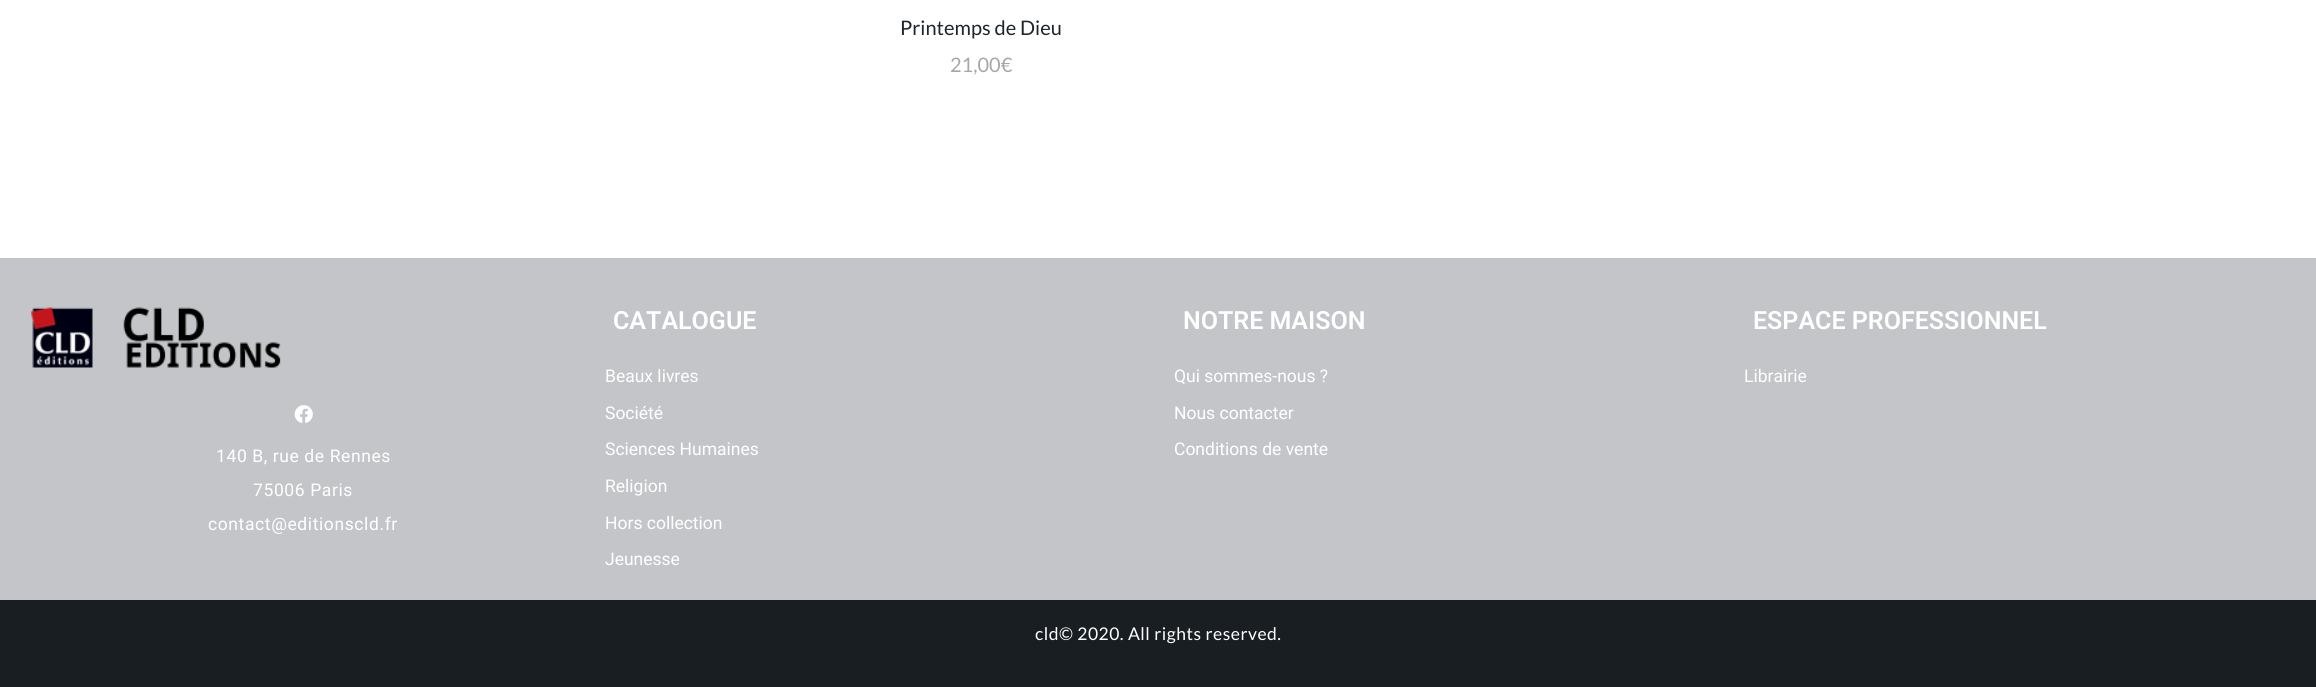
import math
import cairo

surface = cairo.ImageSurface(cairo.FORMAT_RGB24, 2316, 687)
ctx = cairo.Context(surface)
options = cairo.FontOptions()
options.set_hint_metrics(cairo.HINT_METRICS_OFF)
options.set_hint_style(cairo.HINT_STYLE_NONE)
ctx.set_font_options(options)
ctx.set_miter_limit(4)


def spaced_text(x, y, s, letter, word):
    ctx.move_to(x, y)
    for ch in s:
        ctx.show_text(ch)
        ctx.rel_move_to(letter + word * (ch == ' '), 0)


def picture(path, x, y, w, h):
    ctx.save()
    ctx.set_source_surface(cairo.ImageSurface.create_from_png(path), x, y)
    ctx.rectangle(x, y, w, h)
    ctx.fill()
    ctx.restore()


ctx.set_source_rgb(1, 1, 1)
ctx.paint()
ctx.select_font_face("Lato")
ctx.set_font_size(20)
ctx.set_source_rgb(0.114, 0.141, 0.165)
ctx.move_to(900, 35)
ctx.show_text("Printemps de Dieu")
ctx.set_source_rgb(0.647, 0.655, 0.667)
ctx.move_to(950, 72)
ctx.show_text("21,00€")
ctx.set_source_rgb(0.765, 0.773, 0.784)
ctx.rectangle(0, 258, 2316, 342)
ctx.fill()
ctx.select_font_face("Roboto SemiBold")
ctx.set_font_size(25)
ctx.set_source_rgb(1, 1, 1)
ctx.move_to(613, 329)
ctx.show_text("CATALOGUE")
ctx.select_font_face("Roboto")
ctx.set_font_size(17.5)
ctx.move_to(605, 382)
ctx.show_text("Beaux livres")
ctx.move_to(605, 419)
ctx.show_text("Société")
ctx.move_to(605, 455)
ctx.show_text("Sciences Humaines")
ctx.move_to(605, 492)
ctx.show_text("Religion")
ctx.move_to(605, 529)
ctx.show_text("Hors collection")
ctx.move_to(605, 565)
ctx.show_text("Jeunesse")
ctx.select_font_face("Roboto SemiBold")
ctx.set_font_size(25)
ctx.move_to(1183, 329)
ctx.show_text("NOTRE MAISON")
ctx.select_font_face("Roboto")
ctx.set_font_size(17.5)
ctx.move_to(1174, 382)
ctx.show_text("Qui sommes-nous ?")
ctx.move_to(1174, 419)
ctx.show_text("Nous contacter")
ctx.move_to(1174, 455)
ctx.show_text("Conditions de vente")
ctx.select_font_face("Roboto SemiBold")
ctx.set_font_size(25)
ctx.move_to(1753, 329)
ctx.show_text("ESPACE PROFESSIONNEL")
ctx.select_font_face("Roboto")
ctx.set_font_size(17.5)
ctx.move_to(1744, 382)
ctx.show_text("Librairie")
picture("img1.png", 31, 307, 250, 61)
picture("img2.png", 294, 405, 19, 18)
spaced_text(216, 462, "140 B, rue de Rennes", 0.6, 0)
spaced_text(253, 496, "75006 Paris", 0.6, 0)
spaced_text(208, 530, "contact@editionscld.fr", 0.6, 0)
ctx.set_source_rgb(0.098, 0.118, 0.137)
ctx.rectangle(0, 600, 2316, 87)
ctx.fill()
ctx.select_font_face("Lato")
ctx.set_source_rgb(1, 1, 1)
spaced_text(1035, 640, "cld© 2020. All rights reserved.", 0.5, 0)
surface.write_to_png("page.png")
